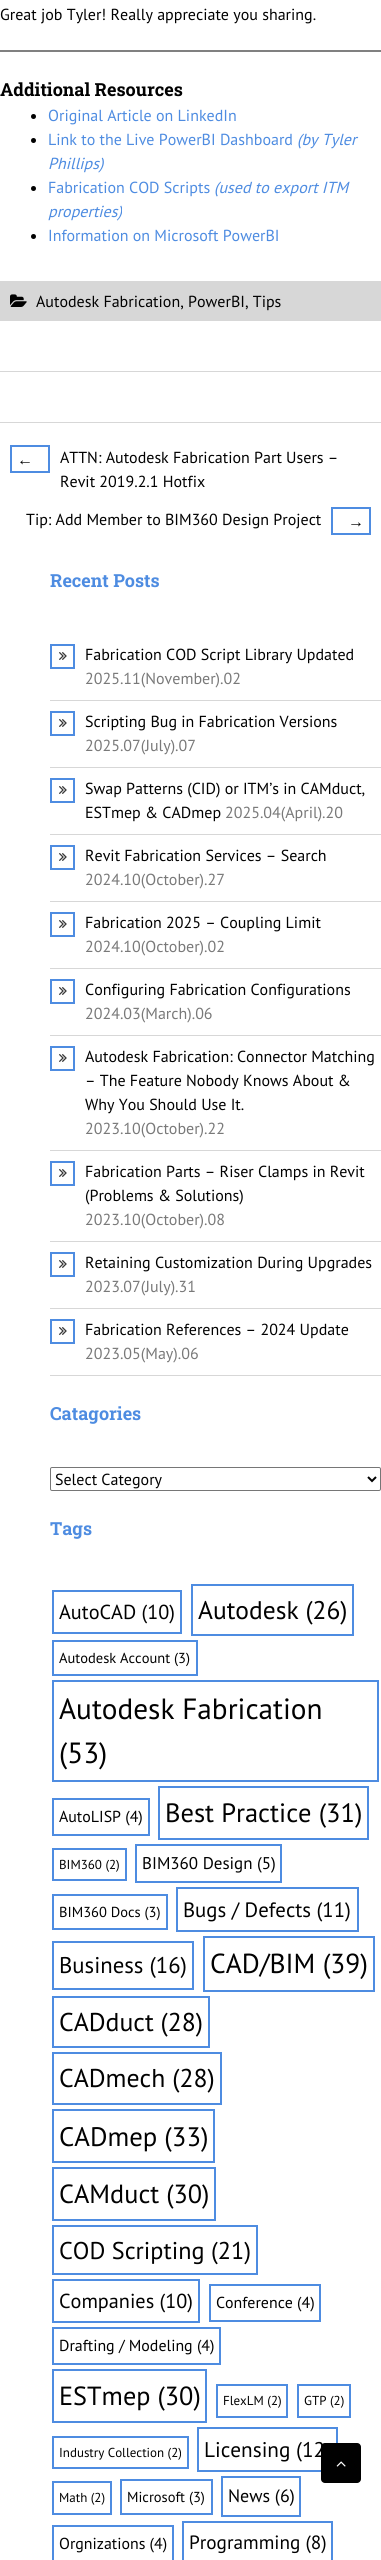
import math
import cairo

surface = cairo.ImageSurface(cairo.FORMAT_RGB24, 381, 2560)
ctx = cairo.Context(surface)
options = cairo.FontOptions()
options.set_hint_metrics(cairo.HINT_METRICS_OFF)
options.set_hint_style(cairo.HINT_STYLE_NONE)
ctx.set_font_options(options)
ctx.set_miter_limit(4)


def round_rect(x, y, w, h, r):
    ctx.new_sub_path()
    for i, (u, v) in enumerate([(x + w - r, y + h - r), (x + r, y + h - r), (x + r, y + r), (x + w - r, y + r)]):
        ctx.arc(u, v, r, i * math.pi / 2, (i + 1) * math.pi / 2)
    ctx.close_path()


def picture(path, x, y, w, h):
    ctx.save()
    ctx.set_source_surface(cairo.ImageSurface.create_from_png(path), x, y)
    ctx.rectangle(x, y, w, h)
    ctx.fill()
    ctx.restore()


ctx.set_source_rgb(1, 1, 1)
ctx.paint()
ctx.set_source_rgb(0.843, 0.843, 0.843)
ctx.rectangle(0, 371, 381, 1)
ctx.fill()
ctx.select_font_face("PT Sans")
ctx.set_font_size(16)
ctx.set_source_rgb(0.004, 0.004, 0.004)
ctx.move_to(0, 20)
ctx.show_text("Great job Tyler! Really appreciate you sharing.")
ctx.set_source_rgb(0.502, 0.502, 0.502)
ctx.rectangle(0, 50, 381, 2)
ctx.fill()
ctx.select_font_face("Roboto Slab", cairo.FONT_SLANT_NORMAL, cairo.FONT_WEIGHT_BOLD)
ctx.set_font_size(18)
ctx.set_source_rgb(0.004, 0.004, 0.004)
ctx.move_to(0, 96)
ctx.show_text("Additional Resources")
ctx.new_path()
ctx.arc(33.5, 116.5, 2.5, 0, 2 * math.pi)
ctx.fill()
ctx.select_font_face("PT Sans")
ctx.set_font_size(16)
ctx.set_source_rgb(0.306, 0.549, 0.882)
ctx.move_to(48, 121)
ctx.show_text("Original Article on LinkedIn")
ctx.set_source_rgb(0.004, 0.004, 0.004)
ctx.new_path()
ctx.arc(33.5, 140.5, 2.5, 0, 2 * math.pi)
ctx.fill()
ctx.set_source_rgb(0.306, 0.549, 0.882)
ctx.move_to(48, 145)
ctx.show_text("Link to the Live PowerBI Dashboard")
ctx.select_font_face("PT Sans", cairo.FONT_SLANT_ITALIC)
ctx.move_to(297, 145)
ctx.show_text("(by Tyler")
ctx.move_to(48, 169)
ctx.show_text("Phillips)")
ctx.set_source_rgb(0.004, 0.004, 0.004)
ctx.new_path()
ctx.arc(33.5, 188.5, 2.5, 0, 2 * math.pi)
ctx.fill()
ctx.select_font_face("PT Sans")
ctx.set_source_rgb(0.306, 0.549, 0.882)
ctx.move_to(48, 193)
ctx.show_text("Fabrication COD Scripts")
ctx.select_font_face("PT Sans", cairo.FONT_SLANT_ITALIC)
ctx.move_to(214, 193)
ctx.show_text("(used to export ITM")
ctx.move_to(48, 217)
ctx.show_text("properties)")
ctx.set_source_rgb(0.004, 0.004, 0.004)
ctx.new_path()
ctx.arc(33.5, 236.5, 2.5, 0, 2 * math.pi)
ctx.fill()
ctx.select_font_face("PT Sans")
ctx.set_source_rgb(0.306, 0.549, 0.882)
ctx.move_to(48, 241)
ctx.show_text("Information on Microsoft PowerBI")
ctx.set_source_rgb(0.843, 0.843, 0.843)
ctx.rectangle(0, 281, 381, 40)
ctx.fill()
picture("img1.png", 10, 294, 17, 13)
ctx.set_source_rgb(0.004, 0.004, 0.004)
ctx.move_to(36, 307)
ctx.show_text("Autodesk Fabrication, PowerBI, Tips")
ctx.set_source_rgb(0.843, 0.843, 0.843)
ctx.rectangle(0, 422, 381, 1)
ctx.fill()
ctx.rectangle(11, 446, 38, 26)
ctx.set_source_rgb(0.306, 0.549, 0.882)
ctx.stroke()
ctx.select_font_face("Liberation Sans")
ctx.set_source_rgb(0.004, 0.004, 0.004)
ctx.move_to(17, 465)
ctx.show_text("←")
ctx.select_font_face("PT Sans")
ctx.move_to(60, 463)
ctx.show_text("ATTN: Autodesk Fabrication Part Users –")
ctx.move_to(60, 487)
ctx.show_text("Revit 2019.2.1 Hotfix")
ctx.move_to(26, 525)
ctx.show_text("Tip: Add Member to BIM360 Design Project")
ctx.rectangle(332, 508, 38, 26)
ctx.set_source_rgb(0.306, 0.549, 0.882)
ctx.stroke()
ctx.select_font_face("Liberation Sans")
ctx.set_source_rgb(0.004, 0.004, 0.004)
ctx.move_to(348, 527)
ctx.show_text("→")
ctx.select_font_face("Roboto Slab", cairo.FONT_SLANT_NORMAL, cairo.FONT_WEIGHT_BOLD)
ctx.set_font_size(18)
ctx.set_source_rgb(0.306, 0.549, 0.882)
ctx.move_to(50, 587)
ctx.show_text("Recent Posts")
picture("img2.png", 50, 644, 25, 25)
ctx.set_source_rgb(0.843, 0.843, 0.843)
ctx.rectangle(50, 700, 331, 1)
ctx.fill()
ctx.select_font_face("PT Sans")
ctx.set_font_size(16)
ctx.set_source_rgb(0.004, 0.004, 0.004)
ctx.move_to(85, 660)
ctx.show_text("Fabrication COD Script Library Updated")
ctx.set_source_rgb(0.475, 0.475, 0.475)
ctx.move_to(85, 684)
ctx.show_text("2025.11(November).02")
picture("img2.png", 50, 711, 25, 25)
ctx.set_source_rgb(0.843, 0.843, 0.843)
ctx.rectangle(50, 767, 331, 1)
ctx.fill()
ctx.set_source_rgb(0.004, 0.004, 0.004)
ctx.move_to(85, 727)
ctx.show_text("Scripting Bug in Fabrication Versions")
ctx.set_source_rgb(0.475, 0.475, 0.475)
ctx.move_to(85, 751)
ctx.show_text("2025.07(July).07")
picture("img2.png", 50, 778, 25, 25)
ctx.set_source_rgb(0.843, 0.843, 0.843)
ctx.rectangle(50, 834, 331, 1)
ctx.fill()
ctx.set_source_rgb(0.004, 0.004, 0.004)
ctx.move_to(85, 794)
ctx.show_text("Swap Patterns (CID) or ITM’s in CAMduct,")
ctx.move_to(85, 818)
ctx.show_text("ESTmep & CADmep")
ctx.set_source_rgb(0.475, 0.475, 0.475)
ctx.move_to(225, 818)
ctx.show_text("2025.04(April).20")
picture("img2.png", 50, 845, 25, 25)
ctx.set_source_rgb(0.843, 0.843, 0.843)
ctx.rectangle(50, 901, 331, 1)
ctx.fill()
ctx.set_source_rgb(0.004, 0.004, 0.004)
ctx.move_to(85, 861)
ctx.show_text("Revit Fabrication Services – Search")
ctx.set_source_rgb(0.475, 0.475, 0.475)
ctx.move_to(85, 885)
ctx.show_text("2024.10(October).27")
picture("img2.png", 50, 912, 25, 25)
ctx.set_source_rgb(0.843, 0.843, 0.843)
ctx.rectangle(50, 968, 331, 1)
ctx.fill()
ctx.set_source_rgb(0.004, 0.004, 0.004)
ctx.move_to(85, 928)
ctx.show_text("Fabrication 2025 – Coupling Limit")
ctx.set_source_rgb(0.475, 0.475, 0.475)
ctx.move_to(85, 952)
ctx.show_text("2024.10(October).02")
picture("img2.png", 50, 979, 25, 25)
ctx.set_source_rgb(0.843, 0.843, 0.843)
ctx.rectangle(50, 1035, 331, 1)
ctx.fill()
ctx.set_source_rgb(0.004, 0.004, 0.004)
ctx.move_to(85, 995)
ctx.show_text("Configuring Fabrication Configurations")
ctx.set_source_rgb(0.475, 0.475, 0.475)
ctx.move_to(85, 1019)
ctx.show_text("2024.03(March).06")
picture("img2.png", 50, 1046, 25, 25)
ctx.set_source_rgb(0.843, 0.843, 0.843)
ctx.rectangle(50, 1150, 331, 1)
ctx.fill()
ctx.set_source_rgb(0.004, 0.004, 0.004)
ctx.move_to(85, 1062)
ctx.show_text("Autodesk Fabrication: Connector Matching")
ctx.move_to(85, 1086)
ctx.show_text("– The Feature Nobody Knows About &")
ctx.move_to(85, 1110)
ctx.show_text("Why You Should Use It.")
ctx.set_source_rgb(0.475, 0.475, 0.475)
ctx.move_to(85, 1134)
ctx.show_text("2023.10(October).22")
picture("img2.png", 50, 1161, 25, 25)
ctx.set_source_rgb(0.843, 0.843, 0.843)
ctx.rectangle(50, 1241, 331, 1)
ctx.fill()
ctx.set_source_rgb(0.004, 0.004, 0.004)
ctx.move_to(85, 1177)
ctx.show_text("Fabrication Parts – Riser Clamps in Revit")
ctx.move_to(85, 1201)
ctx.show_text("(Problems & Solutions)")
ctx.set_source_rgb(0.475, 0.475, 0.475)
ctx.move_to(85, 1225)
ctx.show_text("2023.10(October).08")
picture("img2.png", 50, 1252, 25, 25)
ctx.set_source_rgb(0.843, 0.843, 0.843)
ctx.rectangle(50, 1308, 331, 1)
ctx.fill()
ctx.set_source_rgb(0.004, 0.004, 0.004)
ctx.move_to(85, 1268)
ctx.show_text("Retaining Customization During Upgrades")
ctx.set_source_rgb(0.475, 0.475, 0.475)
ctx.move_to(85, 1292)
ctx.show_text("2023.07(July).31")
picture("img2.png", 50, 1319, 25, 25)
ctx.set_source_rgb(0.843, 0.843, 0.843)
ctx.rectangle(50, 1375, 331, 1)
ctx.fill()
ctx.set_source_rgb(0.004, 0.004, 0.004)
ctx.move_to(85, 1335)
ctx.show_text("Fabrication References – 2024 Update")
ctx.set_source_rgb(0.475, 0.475, 0.475)
ctx.move_to(85, 1359)
ctx.show_text("2023.05(May).06")
ctx.select_font_face("Roboto Slab", cairo.FONT_SLANT_NORMAL, cairo.FONT_WEIGHT_BOLD)
ctx.set_font_size(18)
ctx.set_source_rgb(0.306, 0.549, 0.882)
ctx.move_to(50, 1420)
ctx.show_text("Catagories")
round_rect(50.5, 1467.5, 330, 23, 1.5)
ctx.set_source_rgb(0.463, 0.463, 0.463)
ctx.set_line_width(1)
ctx.stroke()
ctx.new_path()
ctx.move_to(368, 1477)
ctx.line_to(372, 1481)
ctx.line_to(376, 1477)
ctx.set_source_rgb(0.004, 0.004, 0.004)
ctx.set_line_width(2)
ctx.stroke()
ctx.select_font_face("PT Sans")
ctx.set_font_size(16)
ctx.move_to(55, 1485)
ctx.show_text("Select Category")
ctx.select_font_face("Roboto Slab", cairo.FONT_SLANT_NORMAL, cairo.FONT_WEIGHT_BOLD)
ctx.set_font_size(18)
ctx.set_source_rgb(0.306, 0.549, 0.882)
ctx.move_to(50, 1535)
ctx.show_text("Tags")
ctx.rectangle(53, 1591, 128, 42)
ctx.stroke()
ctx.select_font_face("PT Sans")
ctx.set_font_size(20.25)
ctx.set_source_rgb(0.004, 0.004, 0.004)
ctx.move_to(59, 1619)
ctx.show_text("AutoCAD (10)")
ctx.rectangle(192, 1585, 161, 50)
ctx.set_source_rgb(0.306, 0.549, 0.882)
ctx.stroke()
ctx.set_font_size(25.5)
ctx.set_source_rgb(0.004, 0.004, 0.004)
ctx.move_to(198, 1619)
ctx.show_text("Autodesk (26)")
ctx.rectangle(53, 1641, 144, 34)
ctx.set_source_rgb(0.306, 0.549, 0.882)
ctx.stroke()
ctx.set_font_size(14.5)
ctx.set_source_rgb(0.004, 0.004, 0.004)
ctx.move_to(59, 1663)
ctx.show_text("Autodesk Account (3)")
ctx.rectangle(53, 1681, 325, 100)
ctx.set_source_rgb(0.306, 0.549, 0.882)
ctx.stroke()
ctx.set_font_size(29.25)
ctx.set_source_rgb(0.004, 0.004, 0.004)
ctx.move_to(59, 1719)
ctx.show_text("Autodesk Fabrication")
ctx.move_to(59, 1763)
ctx.show_text("(53)")
ctx.rectangle(53, 1799, 96, 36)
ctx.set_source_rgb(0.306, 0.549, 0.882)
ctx.stroke()
ctx.set_font_size(15.9)
ctx.set_source_rgb(0.004, 0.004, 0.004)
ctx.move_to(59, 1822)
ctx.show_text("AutoLISP (4)")
ctx.rectangle(159, 1787, 209, 52)
ctx.set_source_rgb(0.306, 0.549, 0.882)
ctx.stroke()
ctx.set_font_size(26.5)
ctx.set_source_rgb(0.004, 0.004, 0.004)
ctx.move_to(165, 1822)
ctx.show_text("Best Practice (31)")
ctx.rectangle(53, 1849, 73, 31)
ctx.set_source_rgb(0.306, 0.549, 0.882)
ctx.stroke()
ctx.set_font_size(13)
ctx.set_source_rgb(0.004, 0.004, 0.004)
ctx.move_to(59, 1869)
ctx.show_text("BIM360 (2)")
ctx.rectangle(136, 1845, 145, 37)
ctx.set_source_rgb(0.306, 0.549, 0.882)
ctx.stroke()
ctx.set_font_size(17)
ctx.set_source_rgb(0.004, 0.004, 0.004)
ctx.move_to(142, 1869)
ctx.show_text("BIM360 Design (5)")
ctx.rectangle(53, 1895, 114, 34)
ctx.set_source_rgb(0.306, 0.549, 0.882)
ctx.stroke()
ctx.set_font_size(14.5)
ctx.set_source_rgb(0.004, 0.004, 0.004)
ctx.move_to(59, 1917)
ctx.show_text("BIM360 Docs (3)")
ctx.rectangle(177, 1888, 181, 43)
ctx.set_source_rgb(0.306, 0.549, 0.882)
ctx.stroke()
ctx.set_font_size(20.75)
ctx.set_source_rgb(0.004, 0.004, 0.004)
ctx.move_to(183, 1917)
ctx.show_text("Bugs / Defects (11)")
ctx.rectangle(53, 1942, 140, 47)
ctx.set_source_rgb(0.306, 0.549, 0.882)
ctx.stroke()
ctx.set_font_size(22.75)
ctx.set_source_rgb(0.004, 0.004, 0.004)
ctx.move_to(59, 1973)
ctx.show_text("Business (16)")
ctx.rectangle(204, 1937, 170, 54)
ctx.set_source_rgb(0.306, 0.549, 0.882)
ctx.stroke()
ctx.set_font_size(27.5)
ctx.set_source_rgb(0.004, 0.004, 0.004)
ctx.move_to(210, 1973)
ctx.show_text("CAD/BIM (39)")
ctx.rectangle(53, 1997, 156, 50)
ctx.set_source_rgb(0.306, 0.549, 0.882)
ctx.stroke()
ctx.set_font_size(25.75)
ctx.set_source_rgb(0.004, 0.004, 0.004)
ctx.move_to(59, 2031)
ctx.show_text("CADduct (28)")
ctx.rectangle(53, 2053, 168, 51)
ctx.set_source_rgb(0.306, 0.549, 0.882)
ctx.stroke()
ctx.set_source_rgb(0.004, 0.004, 0.004)
ctx.move_to(59, 2087)
ctx.show_text("CADmech (28)")
ctx.rectangle(53, 2110, 161, 52)
ctx.set_source_rgb(0.306, 0.549, 0.882)
ctx.stroke()
ctx.set_font_size(26.75)
ctx.set_source_rgb(0.004, 0.004, 0.004)
ctx.move_to(59, 2146)
ctx.show_text("CADmep (33)")
ctx.rectangle(53, 2168, 162, 52)
ctx.set_source_rgb(0.306, 0.549, 0.882)
ctx.stroke()
ctx.set_font_size(26.25)
ctx.set_source_rgb(0.004, 0.004, 0.004)
ctx.move_to(59, 2203)
ctx.show_text("CAMduct (30)")
ctx.rectangle(53, 2226, 204, 48)
ctx.set_source_rgb(0.306, 0.549, 0.882)
ctx.stroke()
ctx.set_font_size(24.25)
ctx.set_source_rgb(0.004, 0.004, 0.004)
ctx.move_to(59, 2259)
ctx.show_text("COD Scripting (21)")
ctx.rectangle(53, 2280, 146, 42)
ctx.set_source_rgb(0.306, 0.549, 0.882)
ctx.stroke()
ctx.set_font_size(20.25)
ctx.set_source_rgb(0.004, 0.004, 0.004)
ctx.move_to(59, 2308)
ctx.show_text("Companies (10)")
ctx.rectangle(210, 2285, 110, 36)
ctx.set_source_rgb(0.306, 0.549, 0.882)
ctx.stroke()
ctx.set_font_size(15.9)
ctx.set_source_rgb(0.004, 0.004, 0.004)
ctx.move_to(216, 2308)
ctx.show_text("Conference (4)")
ctx.rectangle(53, 2328, 167, 36)
ctx.set_source_rgb(0.306, 0.549, 0.882)
ctx.stroke()
ctx.set_source_rgb(0.004, 0.004, 0.004)
ctx.move_to(59, 2351)
ctx.show_text("Drafting / Modeling (4)")
ctx.rectangle(53, 2370, 153, 52)
ctx.set_source_rgb(0.306, 0.549, 0.882)
ctx.stroke()
ctx.set_font_size(26.25)
ctx.set_source_rgb(0.004, 0.004, 0.004)
ctx.move_to(59, 2405)
ctx.show_text("ESTmep (30)")
ctx.rectangle(217, 2385, 70, 32)
ctx.set_source_rgb(0.306, 0.549, 0.882)
ctx.stroke()
ctx.set_font_size(13)
ctx.set_source_rgb(0.004, 0.004, 0.004)
ctx.move_to(223, 2405)
ctx.show_text("FlexLM (2)")
ctx.rectangle(298, 2385, 52, 32)
ctx.set_source_rgb(0.306, 0.549, 0.882)
ctx.stroke()
ctx.set_source_rgb(0.004, 0.004, 0.004)
ctx.move_to(304, 2405)
ctx.show_text("GTP (2)")
ctx.rectangle(53, 2437, 135, 31)
ctx.set_source_rgb(0.306, 0.549, 0.882)
ctx.stroke()
ctx.set_source_rgb(0.004, 0.004, 0.004)
ctx.move_to(59, 2457)
ctx.show_text("Industry Collection (2)")
ctx.rectangle(198, 2428, 139, 43)
ctx.set_source_rgb(0.306, 0.549, 0.882)
ctx.stroke()
ctx.set_font_size(21.25)
ctx.set_source_rgb(0.004, 0.004, 0.004)
ctx.move_to(204, 2457)
ctx.show_text("Licensing (12")
ctx.rectangle(53, 2482, 58, 32)
ctx.set_source_rgb(0.306, 0.549, 0.882)
ctx.stroke()
ctx.set_font_size(13)
ctx.set_source_rgb(0.004, 0.004, 0.004)
ctx.move_to(59, 2502)
ctx.show_text("Math (2)")
ctx.rectangle(121, 2480, 91, 34)
ctx.set_source_rgb(0.306, 0.549, 0.882)
ctx.stroke()
ctx.set_font_size(14.5)
ctx.set_source_rgb(0.004, 0.004, 0.004)
ctx.move_to(127, 2502)
ctx.show_text("Microsoft (3)")
ctx.rectangle(222, 2477, 78, 39)
ctx.set_source_rgb(0.306, 0.549, 0.882)
ctx.stroke()
ctx.set_font_size(18)
ctx.set_source_rgb(0.004, 0.004, 0.004)
ctx.move_to(228, 2502)
ctx.show_text("News (6)")
ctx.rectangle(53, 2526, 120, 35)
ctx.set_source_rgb(0.306, 0.549, 0.882)
ctx.stroke()
ctx.set_font_size(15.9)
ctx.set_source_rgb(0.004, 0.004, 0.004)
ctx.move_to(59, 2549)
ctx.show_text("Orgnizations (4)")
ctx.rectangle(183, 2522, 149, 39)
ctx.set_source_rgb(0.306, 0.549, 0.882)
ctx.stroke()
ctx.set_font_size(19.25)
ctx.set_source_rgb(0.004, 0.004, 0.004)
ctx.move_to(189, 2549)
ctx.show_text("Programming (8)")
round_rect(321, 2443, 40, 40, 4)
ctx.fill()
picture("img3.png", 336, 2461, 10, 6)
surface.write_to_png("page.png")
